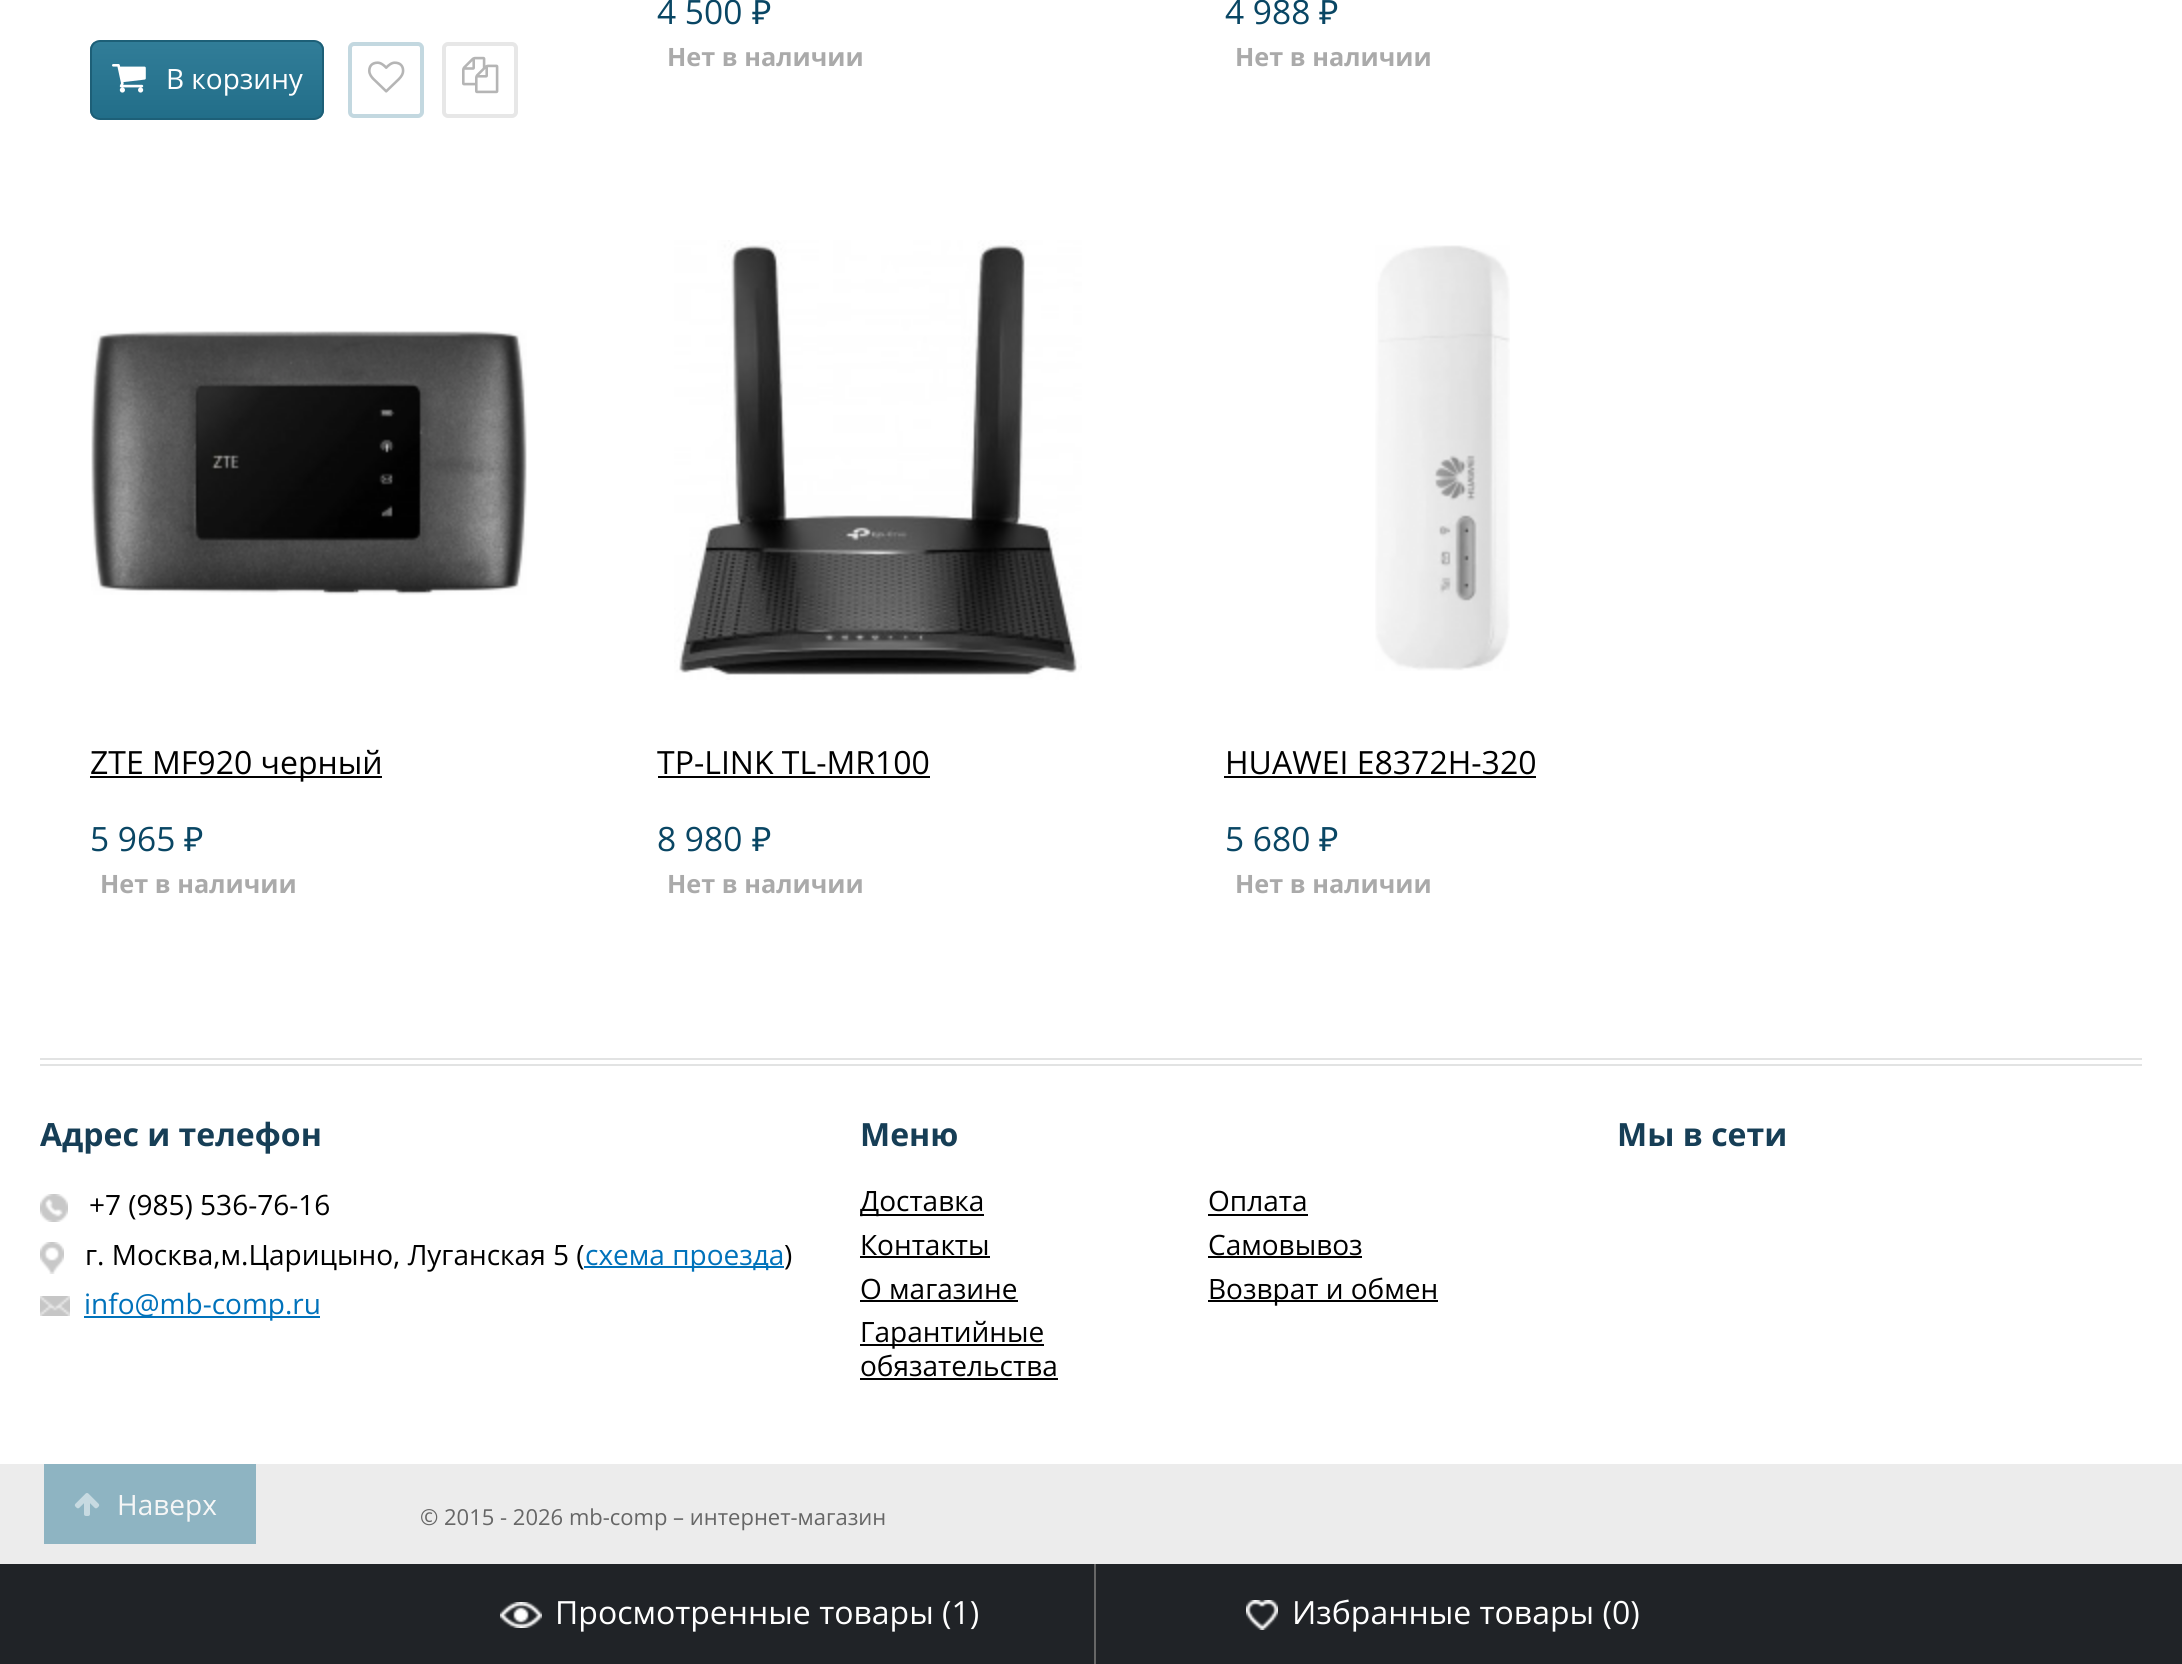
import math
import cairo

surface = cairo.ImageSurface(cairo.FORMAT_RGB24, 2182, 1664)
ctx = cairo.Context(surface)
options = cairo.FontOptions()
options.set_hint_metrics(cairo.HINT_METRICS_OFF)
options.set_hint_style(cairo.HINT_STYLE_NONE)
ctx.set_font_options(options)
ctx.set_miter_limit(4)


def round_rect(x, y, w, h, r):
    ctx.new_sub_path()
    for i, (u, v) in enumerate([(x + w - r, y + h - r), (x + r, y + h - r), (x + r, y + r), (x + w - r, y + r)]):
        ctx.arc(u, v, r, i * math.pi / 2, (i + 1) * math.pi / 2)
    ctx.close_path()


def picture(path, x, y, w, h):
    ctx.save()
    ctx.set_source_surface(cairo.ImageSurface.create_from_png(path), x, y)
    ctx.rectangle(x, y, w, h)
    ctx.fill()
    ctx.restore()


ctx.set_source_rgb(1, 1, 1)
ctx.paint()
ctx.select_font_face("Open Sans")
ctx.set_font_size(33.5)
ctx.set_source_rgb(0.039, 0.275, 0.392)
ctx.move_to(657, 24)
ctx.show_text("4 500")
ctx.select_font_face("Noto Sans")
ctx.move_to(752, 24)
ctx.show_text("₽")
ctx.select_font_face("Open Sans", cairo.FONT_SLANT_NORMAL, cairo.FONT_WEIGHT_BOLD)
ctx.set_font_size(25.25)
ctx.set_source_rgb(0.667, 0.667, 0.667)
ctx.move_to(667, 66)
ctx.show_text("Нет в наличии")
ctx.select_font_face("Open Sans")
ctx.set_font_size(33.5)
ctx.set_source_rgb(0.039, 0.275, 0.392)
ctx.move_to(1225, 24)
ctx.show_text("4 988")
ctx.select_font_face("Noto Sans")
ctx.move_to(1319, 24)
ctx.show_text("₽")
ctx.select_font_face("Open Sans", cairo.FONT_SLANT_NORMAL, cairo.FONT_WEIGHT_BOLD)
ctx.set_font_size(25.25)
ctx.set_source_rgb(0.667, 0.667, 0.667)
ctx.move_to(1235, 66)
ctx.show_text("Нет в наличии")
ctx.save()
round_rect(90, 40, 234, 80, 10)
ctx.clip()
gradient = cairo.LinearGradient(207, 42, 207, 118)
gradient.add_color_stop_rgba(0, 0.192, 0.49, 0.596, 1)
gradient.add_color_stop_rgba(1, 0.133, 0.431, 0.537, 1)
ctx.set_source(gradient)
ctx.rectangle(90, 42, 234, 76)
ctx.fill()
ctx.restore()
round_rect(91, 41, 232, 78, 9)
ctx.set_source_rgb(0.114, 0.373, 0.467)
ctx.stroke()
picture("img1.png", 112, 64, 34, 29)
ctx.select_font_face("Open Sans")
ctx.set_font_size(28)
ctx.set_source_rgb(1, 1, 1)
ctx.move_to(166, 89)
ctx.show_text("В корзину")
round_rect(350, 44, 72, 72, 4)
ctx.set_source_rgb(0.765, 0.847, 0.878)
ctx.set_line_width(4)
ctx.stroke()
picture("img2.png", 368, 61, 37, 32)
round_rect(444, 44, 72, 72, 4)
ctx.set_source_rgb(0.906, 0.906, 0.906)
ctx.stroke()
picture("img3.png", 462, 56, 37, 38)
picture("img4.png", 91, 330, 436, 265)
ctx.set_source_rgb(0, 0, 0)
ctx.rectangle(90, 776, 292, 2)
ctx.fill()
ctx.set_font_size(32)
ctx.move_to(90, 774)
ctx.show_text("ZTE MF920 черный")
ctx.set_font_size(33.5)
ctx.set_source_rgb(0.039, 0.275, 0.392)
ctx.move_to(90, 851)
ctx.show_text("5 965")
ctx.select_font_face("Noto Sans")
ctx.move_to(184, 851)
ctx.show_text("₽")
ctx.select_font_face("Open Sans", cairo.FONT_SLANT_NORMAL, cairo.FONT_WEIGHT_BOLD)
ctx.set_font_size(25.25)
ctx.set_source_rgb(0.667, 0.667, 0.667)
ctx.move_to(100, 893)
ctx.show_text("Нет в наличии")
picture("img5.png", 674, 240, 408, 440)
ctx.select_font_face("Open Sans")
ctx.set_font_size(32)
ctx.set_source_rgb(0, 0, 0)
ctx.move_to(657, 774)
ctx.show_text("TP-LINK TL-MR100")
ctx.rectangle(658, 776, 272, 2)
ctx.fill()
ctx.set_font_size(33.5)
ctx.set_source_rgb(0.039, 0.275, 0.392)
ctx.move_to(657, 851)
ctx.show_text("8 980")
ctx.select_font_face("Noto Sans")
ctx.move_to(752, 851)
ctx.show_text("₽")
ctx.select_font_face("Open Sans", cairo.FONT_SLANT_NORMAL, cairo.FONT_WEIGHT_BOLD)
ctx.set_font_size(25.25)
ctx.set_source_rgb(0.667, 0.667, 0.667)
ctx.move_to(667, 893)
ctx.show_text("Нет в наличии")
picture("img6.png", 1375, 245, 135, 426)
ctx.select_font_face("Open Sans")
ctx.set_font_size(32)
ctx.set_source_rgb(0, 0, 0)
ctx.move_to(1225, 774)
ctx.show_text("HUAWEI E8372H-320")
ctx.rectangle(1224, 776, 312, 2)
ctx.fill()
ctx.set_font_size(33.5)
ctx.set_source_rgb(0.039, 0.275, 0.392)
ctx.move_to(1225, 851)
ctx.show_text("5 680")
ctx.select_font_face("Noto Sans")
ctx.move_to(1319, 851)
ctx.show_text("₽")
ctx.select_font_face("Open Sans", cairo.FONT_SLANT_NORMAL, cairo.FONT_WEIGHT_BOLD)
ctx.set_font_size(25.25)
ctx.set_source_rgb(0.667, 0.667, 0.667)
ctx.move_to(1235, 893)
ctx.show_text("Нет в наличии")
ctx.set_source_rgb(0.886, 0.89, 0.89)
ctx.rectangle(40, 1058, 2102, 2)
ctx.fill()
ctx.rectangle(40, 1064, 2102, 2)
ctx.fill()
ctx.set_font_size(32)
ctx.set_source_rgb(0.086, 0.243, 0.337)
ctx.move_to(40, 1146)
ctx.show_text("Адрес и телефон")
picture("img7.png", 40, 1194, 28, 28)
ctx.select_font_face("Open Sans")
ctx.set_font_size(28)
ctx.set_source_rgb(0, 0, 0)
ctx.move_to(89, 1215)
ctx.show_text("+7 (985) 536-76-16")
picture("img8.png", 40, 1242, 24, 32)
ctx.move_to(85, 1265)
ctx.show_text("г. Москва,м.Царицыно, Луганская 5 (")
ctx.set_source_rgb(0, 0.447, 0.733)
ctx.rectangle(584, 1266, 200, 2)
ctx.fill()
ctx.move_to(585, 1265)
ctx.show_text("схема проезда")
ctx.set_source_rgb(0, 0, 0)
ctx.move_to(784, 1265)
ctx.show_text(")")
picture("img9.png", 40, 1296, 30, 20)
ctx.set_source_rgb(0, 0.447, 0.733)
ctx.rectangle(84, 1316, 236, 2)
ctx.fill()
ctx.move_to(84, 1314)
ctx.show_text("info@mb-comp.ru")
ctx.select_font_face("Open Sans", cairo.FONT_SLANT_NORMAL, cairo.FONT_WEIGHT_BOLD)
ctx.set_font_size(32)
ctx.set_source_rgb(0.086, 0.243, 0.337)
ctx.move_to(860, 1146)
ctx.show_text("Меню")
ctx.set_source_rgb(0, 0, 0)
ctx.rectangle(860, 1214, 124, 2)
ctx.fill()
ctx.select_font_face("Open Sans")
ctx.set_font_size(28)
ctx.move_to(860, 1211)
ctx.show_text("Доставка")
ctx.move_to(1208, 1211)
ctx.show_text("Оплата")
ctx.rectangle(1208, 1214, 100, 2)
ctx.fill()
ctx.move_to(860, 1255)
ctx.show_text("Контакты")
ctx.rectangle(860, 1256, 130, 2)
ctx.fill()
ctx.move_to(1208, 1255)
ctx.show_text("Самовывоз")
ctx.rectangle(1208, 1256, 154, 2)
ctx.fill()
ctx.move_to(860, 1299)
ctx.show_text("О магазине")
ctx.rectangle(860, 1300, 158, 2)
ctx.fill()
ctx.rectangle(1208, 1300, 230, 2)
ctx.fill()
ctx.move_to(1208, 1299)
ctx.show_text("Возврат и обмен")
ctx.rectangle(860, 1344, 184, 2)
ctx.fill()
ctx.move_to(860, 1342)
ctx.show_text("Гарантийные")
ctx.move_to(860, 1376)
ctx.show_text("обязательства")
ctx.rectangle(860, 1378, 198, 2)
ctx.fill()
ctx.select_font_face("Open Sans", cairo.FONT_SLANT_NORMAL, cairo.FONT_WEIGHT_BOLD)
ctx.set_font_size(32)
ctx.set_source_rgb(0.086, 0.243, 0.337)
ctx.move_to(1617, 1146)
ctx.show_text("Мы в сети")
ctx.set_source_rgb(0.922, 0.922, 0.922)
ctx.rectangle(0, 1464, 2182, 100)
ctx.fill()
ctx.set_source_rgb(0.557, 0.706, 0.761)
ctx.rectangle(44, 1464, 212, 80)
ctx.fill()
picture("img10.png", 74, 1493, 26, 23)
ctx.select_font_face("Open Sans")
ctx.set_font_size(28)
ctx.set_source_rgb(0.961, 0.961, 0.961)
ctx.move_to(117, 1515)
ctx.show_text("Наверх")
ctx.set_font_size(22)
ctx.set_source_rgb(0.4, 0.4, 0.4)
ctx.move_to(420, 1525)
ctx.show_text("© 2015 - 2026 mb-comp – интернет-магазин")
ctx.set_source_rgb(0.125, 0.137, 0.153)
ctx.rectangle(0, 1564, 2182, 100)
ctx.fill()
picture("img11.png", 500, 1602, 42, 26)
ctx.set_font_size(32)
ctx.set_source_rgb(1, 1, 1)
ctx.move_to(555, 1624)
ctx.show_text("Просмотренные товары (1)")
ctx.set_source_rgb(0.4, 0.4, 0.4)
ctx.rectangle(1094, 1564, 2, 100)
ctx.fill()
picture("img12.png", 1246, 1600, 32, 30)
ctx.set_source_rgb(1, 1, 1)
ctx.move_to(1292, 1624)
ctx.show_text("Избранные товары (0)")
surface.write_to_png("page.png")
